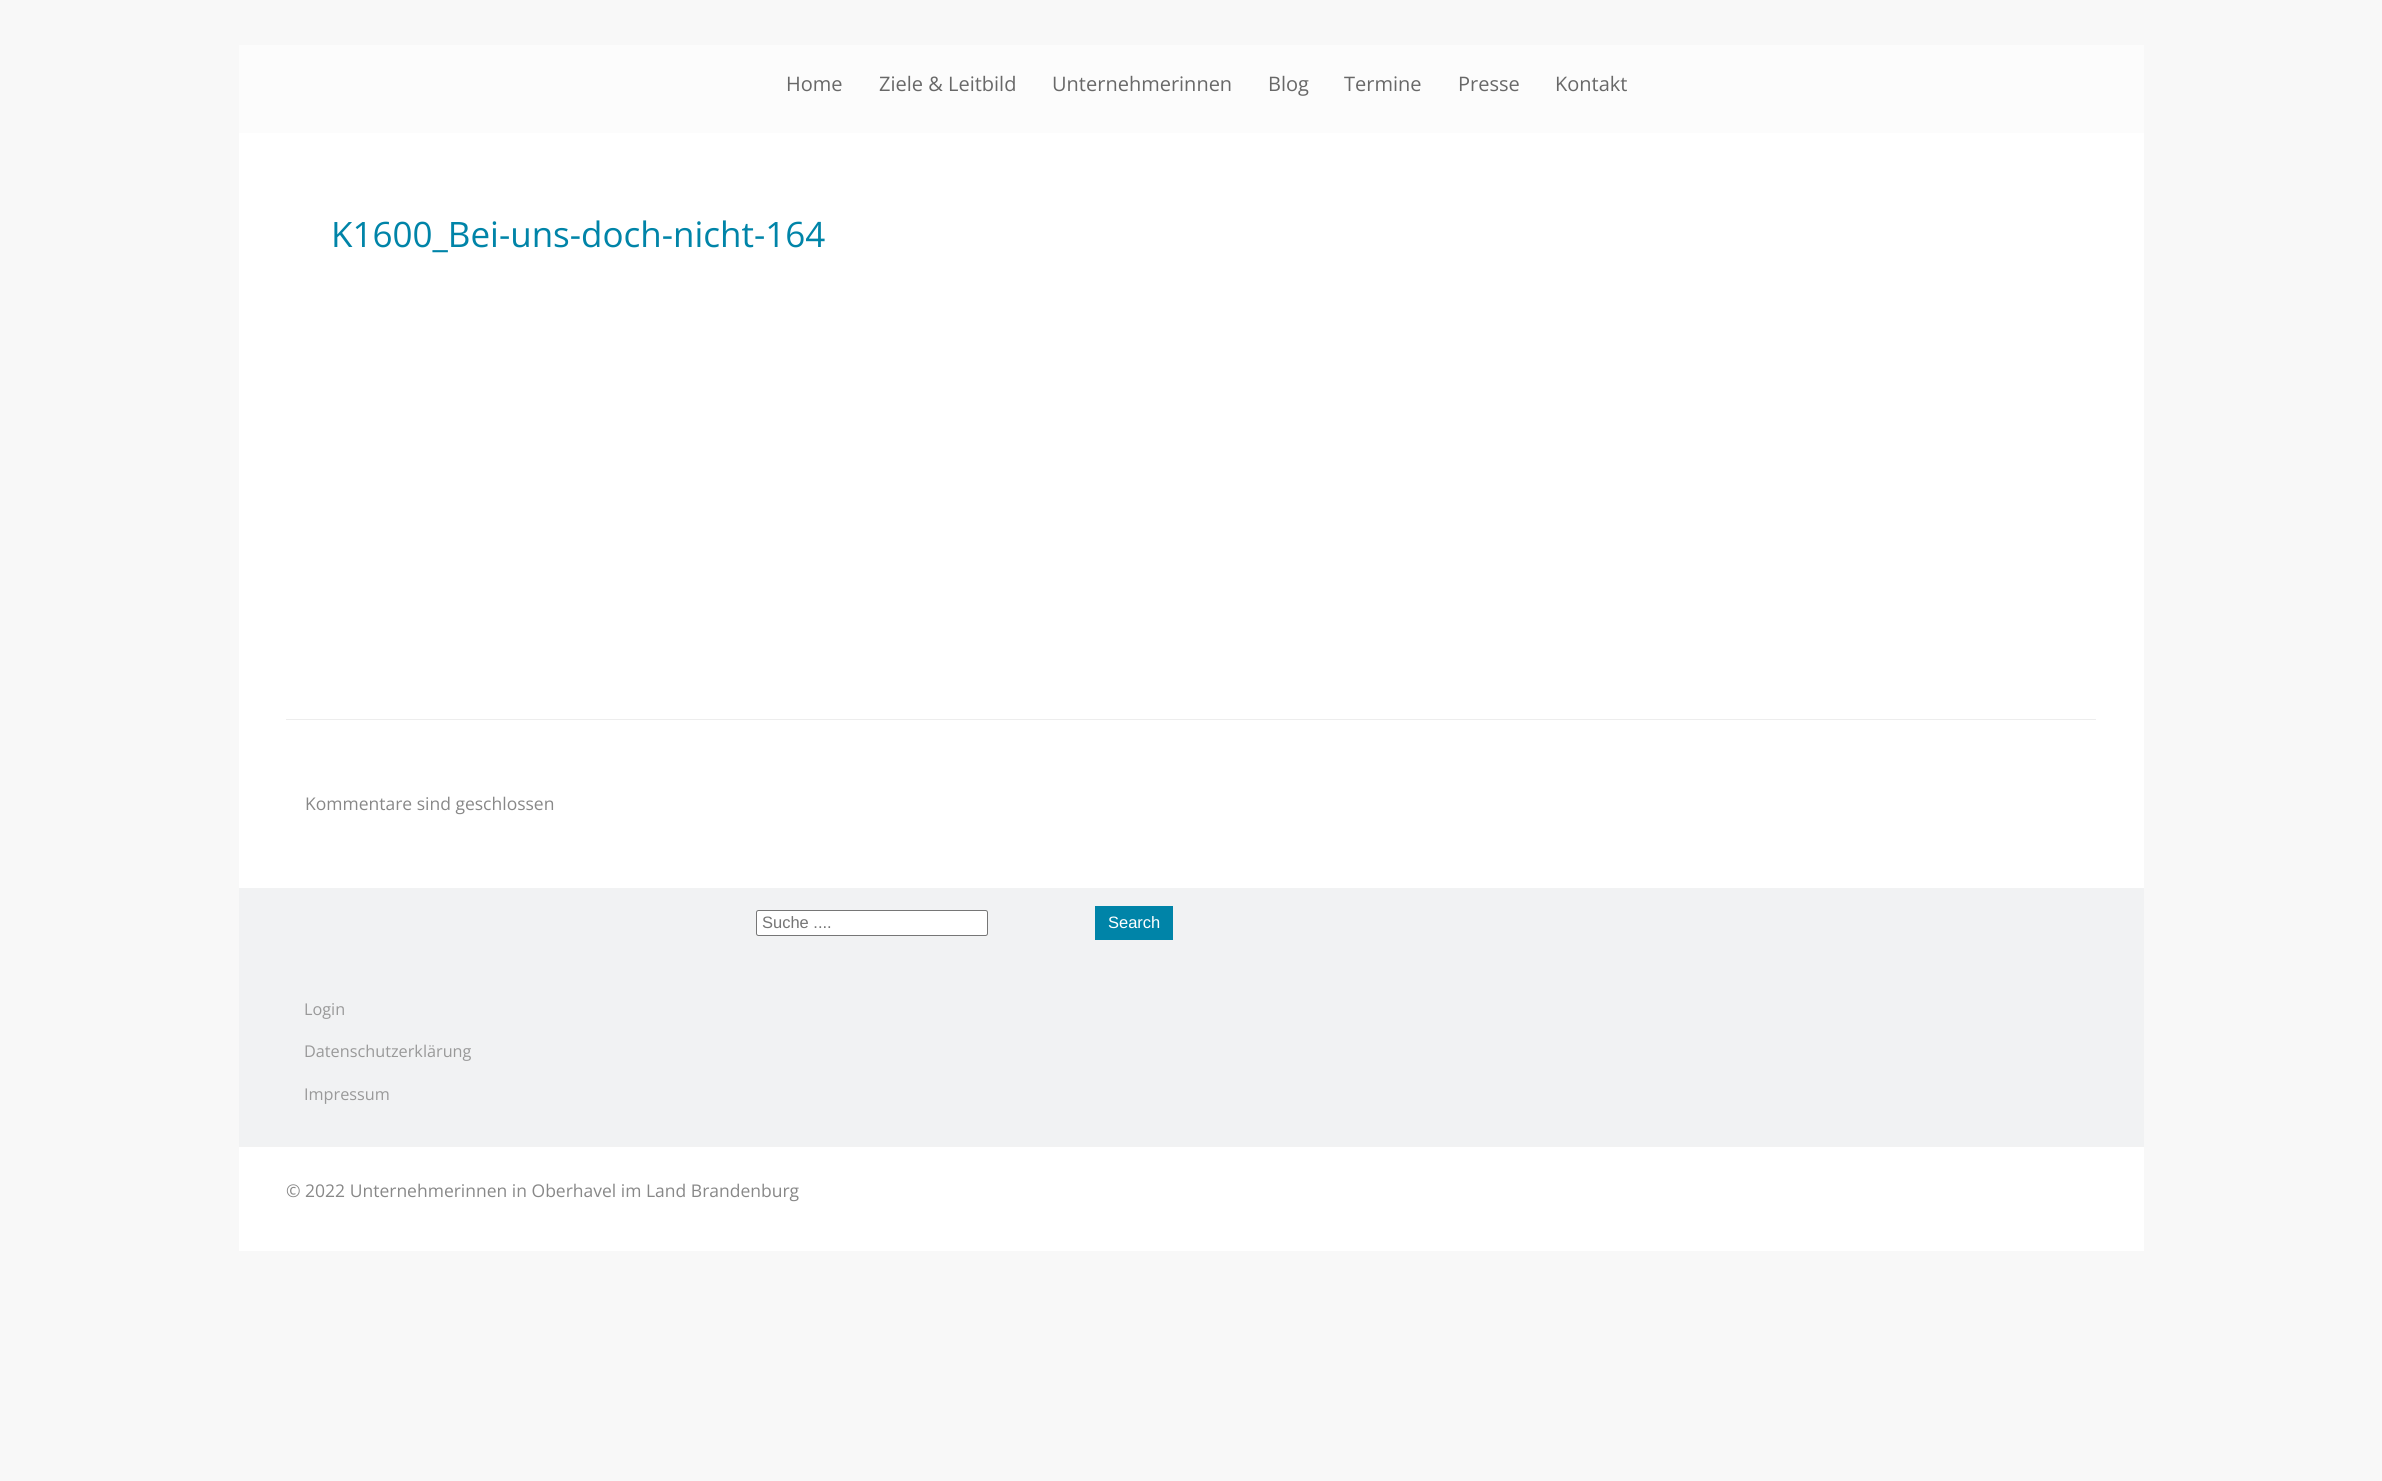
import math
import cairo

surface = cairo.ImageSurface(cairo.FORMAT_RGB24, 2382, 1481)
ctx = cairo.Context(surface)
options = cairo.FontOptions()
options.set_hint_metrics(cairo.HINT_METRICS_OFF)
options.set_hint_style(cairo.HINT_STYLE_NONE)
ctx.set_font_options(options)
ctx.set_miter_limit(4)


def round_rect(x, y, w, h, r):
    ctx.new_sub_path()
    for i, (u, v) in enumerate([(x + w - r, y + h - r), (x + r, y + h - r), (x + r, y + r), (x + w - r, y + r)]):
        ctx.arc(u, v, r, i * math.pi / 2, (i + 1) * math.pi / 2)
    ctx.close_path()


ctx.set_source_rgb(0.969, 0.969, 0.969)
ctx.paint()
ctx.set_source_rgb(0.988, 0.988, 0.988)
ctx.rectangle(239, 45, 1905, 88)
ctx.fill()
ctx.select_font_face("Open Sans")
ctx.set_font_size(20)
ctx.set_source_rgb(0.408, 0.408, 0.408)
ctx.move_to(786, 91)
ctx.show_text("Home")
ctx.move_to(879, 91)
ctx.show_text("Ziele & Leitbild")
ctx.move_to(1052, 91)
ctx.show_text("Unternehmerinnen")
ctx.move_to(1268, 91)
ctx.show_text("Blog")
ctx.move_to(1344, 91)
ctx.show_text("Termine")
ctx.move_to(1458, 91)
ctx.show_text("Presse")
ctx.move_to(1555, 91)
ctx.show_text("Kontakt")
ctx.set_source_rgb(1, 1, 1)
ctx.rectangle(239, 133, 1905, 755)
ctx.fill()
ctx.set_font_size(35)
ctx.set_source_rgb(0, 0.518, 0.659)
ctx.move_to(331, 247)
ctx.show_text("K1600_Bei-uns-doch-nicht-164")
ctx.set_source_rgb(0.929, 0.929, 0.929)
ctx.rectangle(286, 719, 1810, 1)
ctx.fill()
ctx.set_font_size(17.5)
ctx.set_source_rgb(0.533, 0.533, 0.533)
ctx.move_to(305, 810)
ctx.show_text("Kommentare sind geschlossen")
ctx.set_source_rgb(1, 1, 1)
ctx.rectangle(239, 1147, 1905, 104)
ctx.fill()
ctx.set_source_rgb(0.945, 0.949, 0.953)
ctx.rectangle(239, 888, 1905, 258)
ctx.fill()
ctx.set_source_rgb(1, 1, 1)
round_rect(756.5, 910.5, 231, 25, 2)
ctx.fill_preserve()
ctx.set_source_rgb(0.463, 0.463, 0.463)
ctx.set_line_width(1)
ctx.stroke()
ctx.select_font_face("Liberation Sans")
ctx.set_font_size(16.5)
ctx.set_source_rgb(0.459, 0.459, 0.459)
ctx.move_to(762, 928)
ctx.show_text("Suche ....")
ctx.set_source_rgb(0, 0.518, 0.659)
ctx.rectangle(1095, 906, 78, 34)
ctx.fill()
ctx.set_source_rgb(1, 1, 1)
ctx.move_to(1108, 928)
ctx.show_text("Search")
ctx.select_font_face("Open Sans")
ctx.set_font_size(16.25)
ctx.set_source_rgb(0.6, 0.6, 0.6)
ctx.move_to(304, 1015)
ctx.show_text("Login")
ctx.move_to(304, 1057)
ctx.show_text("Datenschutzerklärung")
ctx.move_to(304, 1100)
ctx.show_text("Impressum")
ctx.set_source_rgb(0.949, 0.949, 0.949)
ctx.rectangle(239, 1146, 1905, 1)
ctx.fill()
ctx.set_font_size(17.5)
ctx.set_source_rgb(0.533, 0.533, 0.533)
ctx.move_to(286, 1197)
ctx.show_text("© 2022 Unternehmerinnen in Oberhavel im Land Brandenburg")
surface.write_to_png("page.png")
